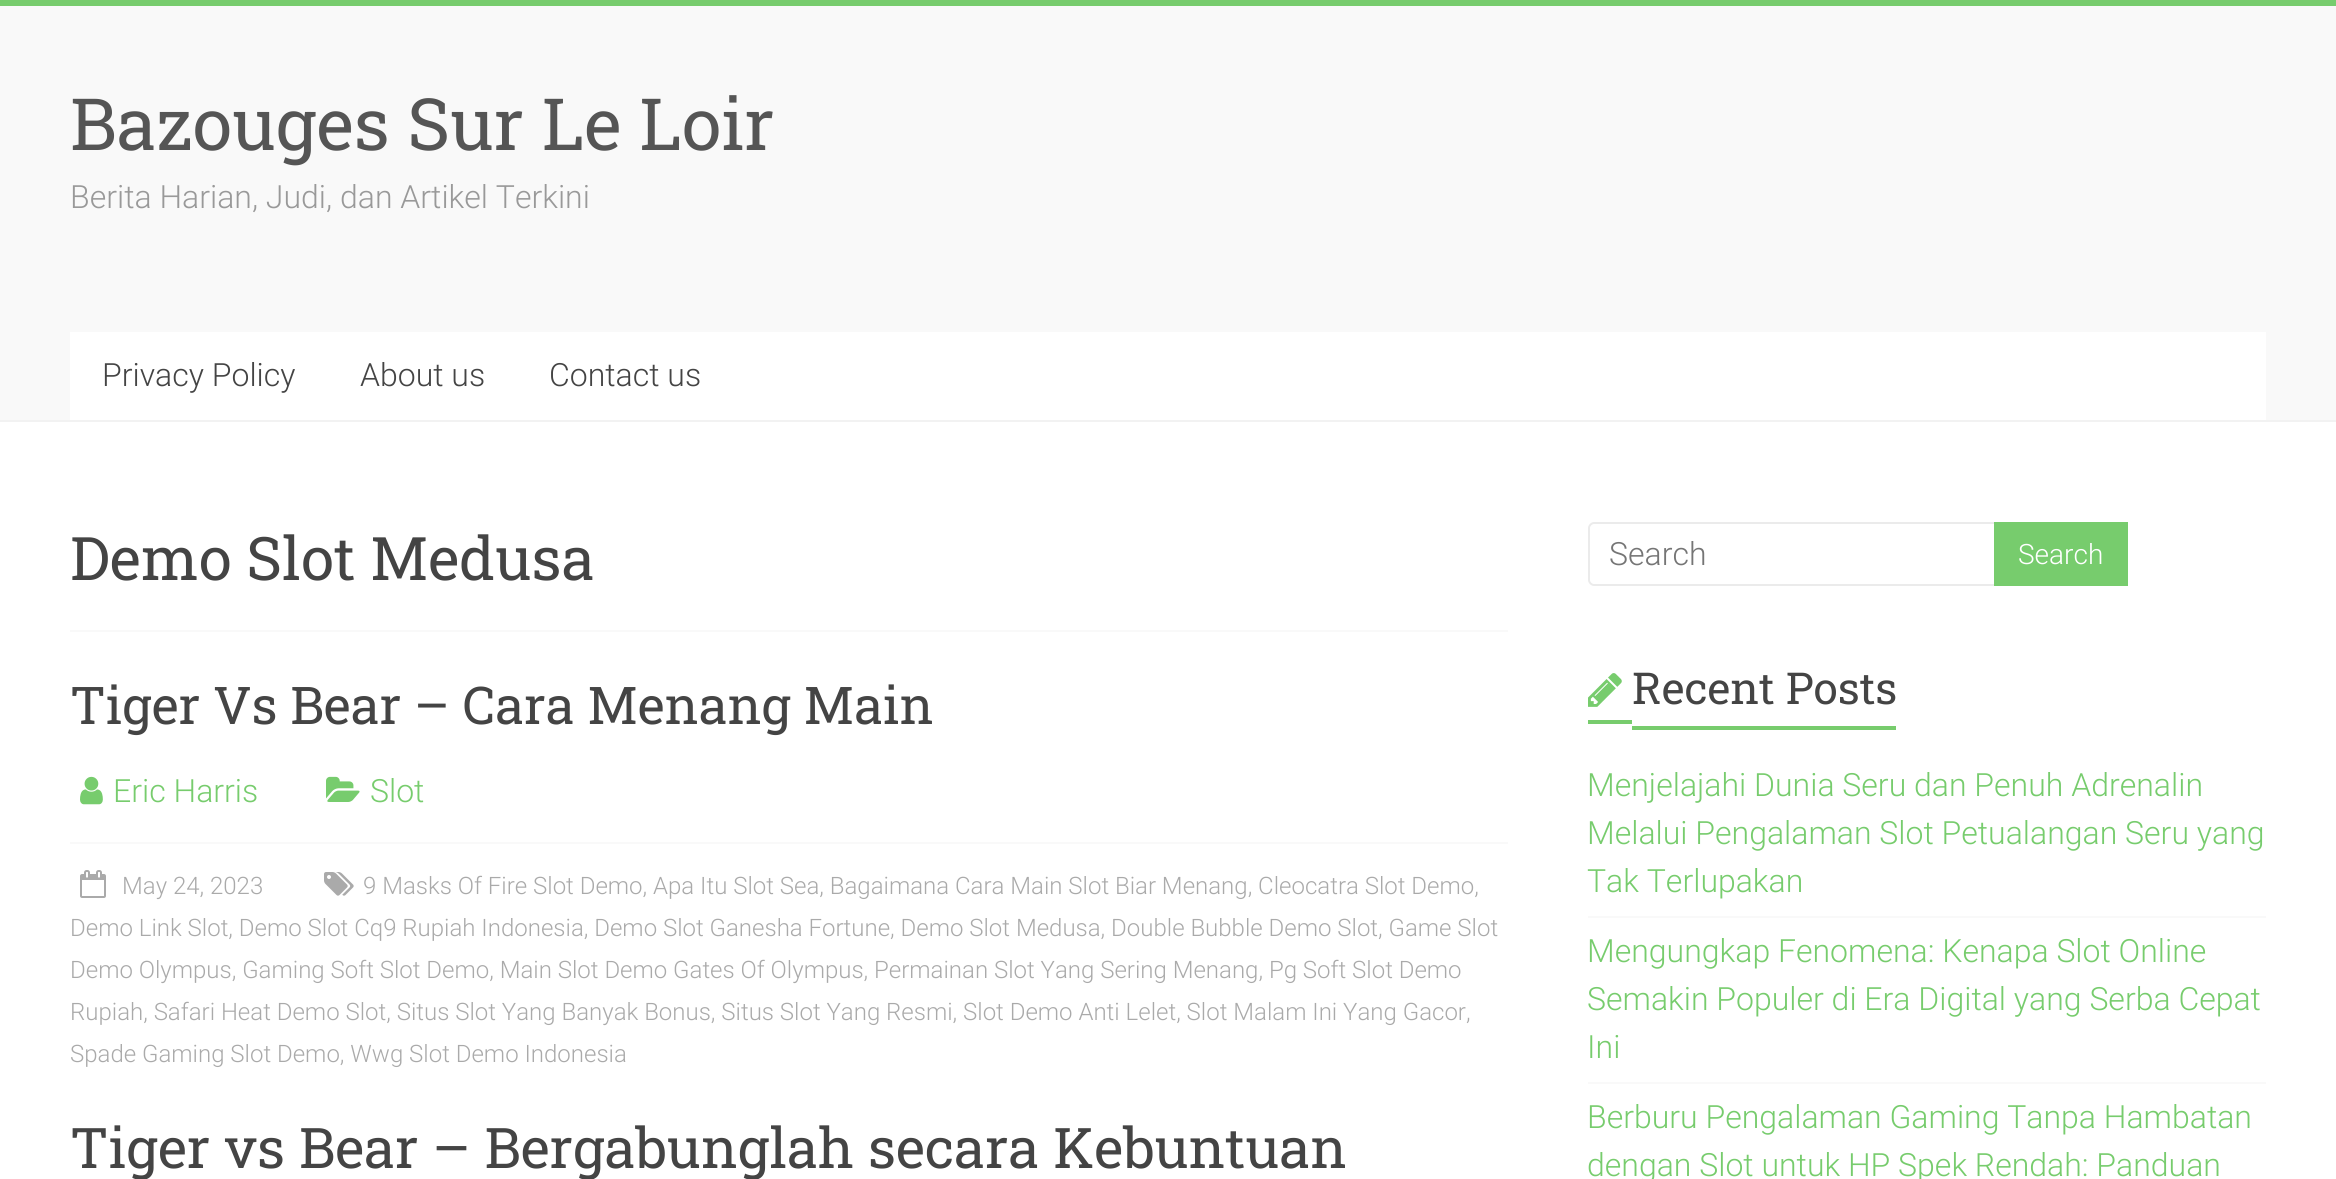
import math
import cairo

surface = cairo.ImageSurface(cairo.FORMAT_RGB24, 2336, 1179)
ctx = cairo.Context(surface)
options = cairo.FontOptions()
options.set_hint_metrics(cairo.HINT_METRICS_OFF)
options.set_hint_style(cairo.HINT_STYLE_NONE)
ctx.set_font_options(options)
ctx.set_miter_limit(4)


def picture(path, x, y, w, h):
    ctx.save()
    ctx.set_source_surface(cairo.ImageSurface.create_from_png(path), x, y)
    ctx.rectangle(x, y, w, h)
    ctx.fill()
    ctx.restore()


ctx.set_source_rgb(1, 1, 1)
ctx.paint()
ctx.set_source_rgb(0.467, 0.8, 0.427)
ctx.rectangle(0, 0, 2336, 6)
ctx.fill()
ctx.set_source_rgb(0.973, 0.973, 0.973)
ctx.rectangle(0, 6, 2336, 414)
ctx.fill()
ctx.set_source_rgb(0.949, 0.949, 0.949)
ctx.rectangle(0, 420, 2336, 2)
ctx.fill()
ctx.select_font_face("Roboto Slab")
ctx.set_font_size(72)
ctx.set_source_rgb(0.333, 0.333, 0.333)
ctx.move_to(70, 150)
ctx.show_text("Bazouges Sur Le Loir")
ctx.select_font_face("Roboto Light")
ctx.set_font_size(32)
ctx.set_source_rgb(0.6, 0.6, 0.6)
ctx.move_to(70, 208)
ctx.show_text("Berita Harian, Judi, dan Artikel Terkini")
ctx.set_source_rgb(1, 1, 1)
ctx.rectangle(70, 332, 2196, 88)
ctx.fill()
ctx.set_source_rgb(0.267, 0.267, 0.267)
ctx.move_to(102, 386)
ctx.show_text("Privacy Policy")
ctx.move_to(360, 386)
ctx.show_text("About us")
ctx.move_to(549, 386)
ctx.show_text("Contact us")
ctx.set_source_rgb(0.973, 0.973, 0.973)
ctx.rectangle(70, 630, 1438, 2)
ctx.fill()
ctx.select_font_face("Roboto Slab")
ctx.set_font_size(60)
ctx.set_source_rgb(0.267, 0.267, 0.267)
ctx.move_to(70, 580)
ctx.show_text("Demo Slot Medusa")
ctx.set_font_size(52)
ctx.move_to(70, 724)
ctx.show_text("Tiger Vs Bear – Cara Menang Main")
picture("img1.png", 80, 776, 23, 29)
ctx.select_font_face("Roboto Light")
ctx.set_font_size(32)
ctx.set_source_rgb(0.467, 0.8, 0.427)
ctx.move_to(113, 802)
ctx.show_text("Eric Harris")
picture("img2.png", 326, 776, 34, 26)
ctx.move_to(370, 802)
ctx.show_text("Slot")
ctx.set_source_rgb(0.973, 0.973, 0.973)
ctx.rectangle(70, 842, 1438, 2)
ctx.fill()
picture("img3.png", 324, 872, 30, 24)
ctx.set_font_size(24)
ctx.set_source_rgb(0.667, 0.667, 0.667)
ctx.move_to(363, 894)
ctx.show_text("9 Masks Of Fire Slot Demo, Apa Itu Slot Sea, Bagaimana Cara Main Slot Biar Menang, Cleocatra Slot Demo,")
ctx.move_to(70, 936)
ctx.show_text("Demo Link Slot, Demo Slot Cq9 Rupiah Indonesia, Demo Slot Ganesha Fortune, Demo Slot Medusa, Double Bubble Demo Slot, Game Slot")
ctx.move_to(70, 978)
ctx.show_text("Demo Olympus, Gaming Soft Slot Demo, Main Slot Demo Gates Of Olympus, Permainan Slot Yang Sering Menang, Pg Soft Slot Demo")
ctx.move_to(70, 1020)
ctx.show_text("Rupiah, Safari Heat Demo Slot, Situs Slot Yang Banyak Bonus, Situs Slot Yang Resmi, Slot Demo Anti Lelet, Slot Malam Ini Yang Gacor,")
ctx.move_to(70, 1062)
ctx.show_text("Spade Gaming Slot Demo, Wwg Slot Demo Indonesia")
picture("img4.png", 80, 870, 26, 28)
ctx.move_to(122, 894)
ctx.show_text("May 24, 2023")
ctx.select_font_face("Roboto Slab")
ctx.set_font_size(56)
ctx.set_source_rgb(0.267, 0.267, 0.267)
ctx.move_to(70, 1168)
ctx.show_text("Tiger vs Bear – Bergabunglah secara Kebuntuan")
ctx.set_source_rgb(0.918, 0.918, 0.918)
ctx.set_fill_rule(cairo.FILL_RULE_EVEN_ODD)
ctx.new_path()
ctx.move_to(1594, 522)
ctx.line_to(1994, 522)
ctx.line_to(1994, 586)
ctx.line_to(1594, 586)
ctx.curve_to(1591, 586, 1588, 583, 1588, 580)
ctx.line_to(1588, 528)
ctx.curve_to(1588, 525, 1591, 522, 1594, 522)
ctx.close_path()
ctx.move_to(1594, 524)
ctx.line_to(1994, 524)
ctx.line_to(1994, 584)
ctx.line_to(1594, 584)
ctx.curve_to(1592, 584, 1590, 582, 1590, 580)
ctx.line_to(1590, 528)
ctx.curve_to(1590, 526, 1592, 524, 1594, 524)
ctx.close_path()
ctx.fill()
ctx.select_font_face("Roboto Light")
ctx.set_font_size(32)
ctx.set_source_rgb(0.459, 0.459, 0.459)
ctx.move_to(1609, 565)
ctx.show_text("Search")
ctx.set_source_rgb(0.467, 0.8, 0.427)
ctx.rectangle(1994, 522, 134, 64)
ctx.fill()
ctx.set_font_size(28)
ctx.set_source_rgb(1, 1, 1)
ctx.move_to(2018, 564)
ctx.show_text("Search")
picture("img5.png", 1588, 673, 34, 34)
ctx.select_font_face("Roboto Slab")
ctx.set_font_size(44)
ctx.set_source_rgb(0.267, 0.267, 0.267)
ctx.move_to(1632, 704)
ctx.show_text("Recent Posts")
ctx.set_source_rgb(0.467, 0.8, 0.427)
ctx.rectangle(1588, 720, 44, 4)
ctx.fill()
ctx.rectangle(1632, 726, 264, 4)
ctx.fill()
ctx.set_source_rgb(0.973, 0.973, 0.973)
ctx.rectangle(1588, 916, 678, 2)
ctx.fill()
ctx.select_font_face("Roboto Light")
ctx.set_font_size(32)
ctx.set_source_rgb(0.467, 0.8, 0.427)
ctx.move_to(1587, 796)
ctx.show_text("Menjelajahi Dunia Seru dan Penuh Adrenalin")
ctx.move_to(1587, 844)
ctx.show_text("Melalui Pengalaman Slot Petualangan Seru yang")
ctx.move_to(1587, 892)
ctx.show_text("Tak Terlupakan")
ctx.set_source_rgb(0.973, 0.973, 0.973)
ctx.rectangle(1588, 1082, 678, 2)
ctx.fill()
ctx.set_source_rgb(0.467, 0.8, 0.427)
ctx.move_to(1587, 962)
ctx.show_text("Mengungkap Fenomena: Kenapa Slot Online")
ctx.move_to(1587, 1010)
ctx.show_text("Semakin Populer di Era Digital yang Serba Cepat")
ctx.move_to(1587, 1058)
ctx.show_text("Ini")
ctx.move_to(1587, 1128)
ctx.show_text("Berburu Pengalaman Gaming Tanpa Hambatan")
ctx.move_to(1587, 1176)
ctx.show_text("dengan Slot untuk HP Spek Rendah: Panduan")
surface.write_to_png("page.png")
